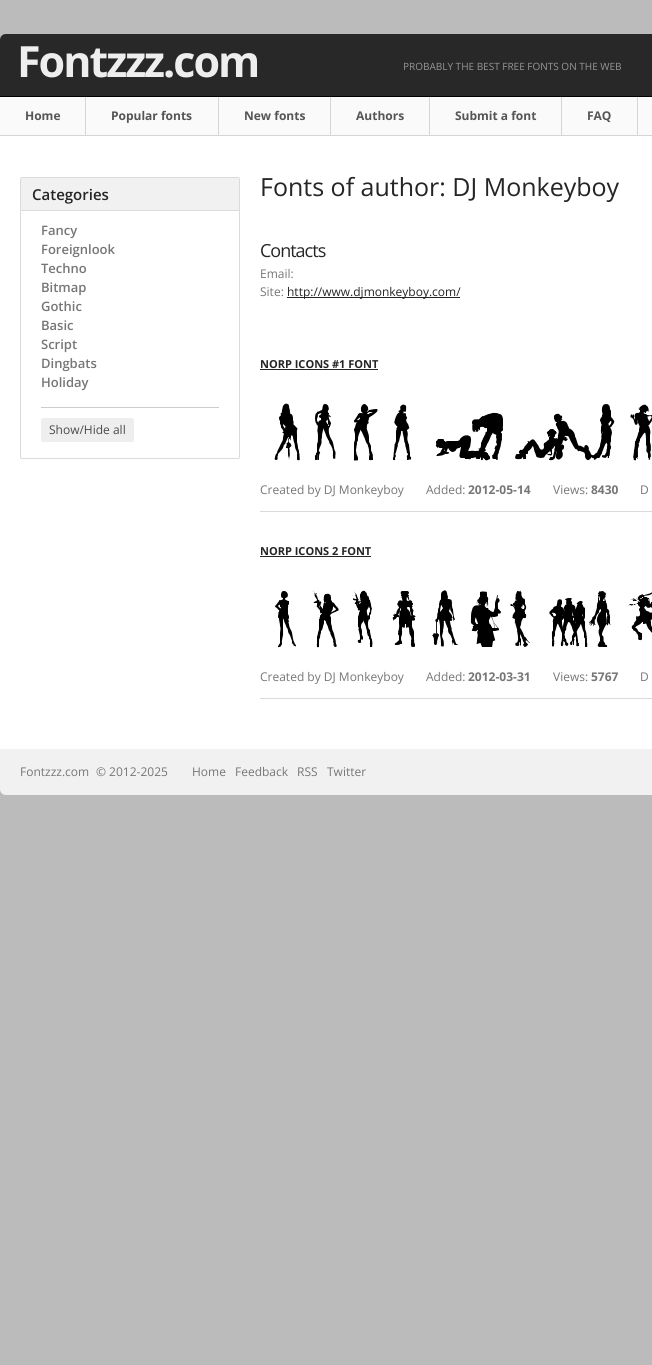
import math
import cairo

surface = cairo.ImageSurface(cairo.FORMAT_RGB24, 652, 1365)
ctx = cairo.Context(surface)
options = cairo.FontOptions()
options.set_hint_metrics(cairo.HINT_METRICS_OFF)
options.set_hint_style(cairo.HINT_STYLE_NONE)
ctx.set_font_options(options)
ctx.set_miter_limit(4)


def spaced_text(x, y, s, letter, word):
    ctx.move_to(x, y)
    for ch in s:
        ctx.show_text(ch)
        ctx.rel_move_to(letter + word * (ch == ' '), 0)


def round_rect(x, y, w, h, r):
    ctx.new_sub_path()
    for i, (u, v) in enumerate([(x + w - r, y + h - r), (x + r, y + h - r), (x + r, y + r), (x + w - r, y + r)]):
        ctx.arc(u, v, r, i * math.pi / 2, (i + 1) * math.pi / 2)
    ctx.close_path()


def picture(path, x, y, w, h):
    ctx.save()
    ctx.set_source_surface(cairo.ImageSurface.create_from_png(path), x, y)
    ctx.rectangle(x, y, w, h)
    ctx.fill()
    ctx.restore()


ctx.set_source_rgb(0.733, 0.733, 0.733)
ctx.paint()
ctx.set_source_rgb(0.157, 0.157, 0.157)
ctx.new_path()
ctx.move_to(6, 34)
ctx.line_to(652, 34)
ctx.curve_to(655.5, 34, 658, 36.5, 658, 40)
ctx.line_to(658, 97)
ctx.line_to(0, 97)
ctx.line_to(0, 40)
ctx.curve_to(0, 36.5, 2.5, 34, 6, 34)
ctx.close_path()
ctx.fill()
ctx.set_source_rgb(0, 0, 0)
ctx.rectangle(0, 96, 652, 1)
ctx.fill()
ctx.select_font_face("Open Sans", cairo.FONT_SLANT_NORMAL, cairo.FONT_WEIGHT_BOLD)
ctx.set_font_size(43)
ctx.set_source_rgb(0.933, 0.933, 0.933)
spaced_text(17, 77, "Fontzzz.com", -2, 0)
ctx.select_font_face("Open Sans")
ctx.set_font_size(10)
ctx.set_source_rgb(0.588, 0.588, 0.588)
ctx.move_to(403, 70)
ctx.show_text("PROBABLY THE BEST FREE FONTS ON THE WEB")
ctx.set_source_rgb(0.98, 0.98, 0.98)
ctx.rectangle(0, 97, 85, 38)
ctx.fill()
ctx.set_source_rgb(0.835, 0.835, 0.835)
ctx.rectangle(85, 97, 1, 39)
ctx.fill()
ctx.rectangle(0, 135, 86, 1)
ctx.fill()
ctx.select_font_face("Open Sans", cairo.FONT_SLANT_NORMAL, cairo.FONT_WEIGHT_BOLD)
ctx.set_font_size(12)
ctx.set_source_rgb(0.333, 0.333, 0.333)
ctx.move_to(25, 120)
ctx.show_text("Home")
ctx.set_source_rgb(0.98, 0.98, 0.98)
ctx.rectangle(86, 97, 132, 38)
ctx.fill()
ctx.set_source_rgb(0.835, 0.835, 0.835)
ctx.rectangle(218, 97, 1, 39)
ctx.fill()
ctx.rectangle(86, 135, 133, 1)
ctx.fill()
ctx.set_source_rgb(0.333, 0.333, 0.333)
ctx.move_to(111, 120)
ctx.show_text("Popular fonts")
ctx.set_source_rgb(0.98, 0.98, 0.98)
ctx.rectangle(219, 97, 111, 38)
ctx.fill()
ctx.set_source_rgb(0.835, 0.835, 0.835)
ctx.rectangle(330, 97, 1, 39)
ctx.fill()
ctx.rectangle(219, 135, 112, 1)
ctx.fill()
ctx.set_source_rgb(0.333, 0.333, 0.333)
ctx.move_to(244, 120)
ctx.show_text("New fonts")
ctx.set_source_rgb(0.98, 0.98, 0.98)
ctx.rectangle(331, 97, 98, 38)
ctx.fill()
ctx.set_source_rgb(0.835, 0.835, 0.835)
ctx.rectangle(429, 97, 1, 39)
ctx.fill()
ctx.rectangle(331, 135, 99, 1)
ctx.fill()
ctx.set_source_rgb(0.333, 0.333, 0.333)
ctx.move_to(356, 120)
ctx.show_text("Authors")
ctx.set_source_rgb(0.98, 0.98, 0.98)
ctx.rectangle(430, 97, 131, 38)
ctx.fill()
ctx.set_source_rgb(0.835, 0.835, 0.835)
ctx.rectangle(561, 97, 1, 39)
ctx.fill()
ctx.rectangle(430, 135, 132, 1)
ctx.fill()
ctx.set_source_rgb(0.333, 0.333, 0.333)
ctx.move_to(455, 120)
ctx.show_text("Submit a font")
ctx.set_source_rgb(0.98, 0.98, 0.98)
ctx.rectangle(562, 97, 75, 38)
ctx.fill()
ctx.set_source_rgb(0.835, 0.835, 0.835)
ctx.rectangle(637, 97, 1, 39)
ctx.fill()
ctx.rectangle(562, 135, 90, 1)
ctx.fill()
ctx.set_source_rgb(0.333, 0.333, 0.333)
ctx.move_to(587, 120)
ctx.show_text("FAQ")
ctx.set_source_rgb(0.98, 0.98, 0.98)
ctx.rectangle(638, 97, 14, 38)
ctx.fill()
ctx.set_source_rgb(1, 1, 1)
ctx.rectangle(0, 136, 652, 613)
ctx.fill()
round_rect(20.5, 177.5, 219, 281, 1.5)
ctx.set_source_rgb(0.859, 0.859, 0.859)
ctx.set_line_width(1)
ctx.stroke()
ctx.set_source_rgb(0.945, 0.945, 0.945)
ctx.rectangle(21, 178, 218, 32)
ctx.fill()
ctx.set_source_rgb(0.859, 0.859, 0.859)
ctx.rectangle(21, 210, 218, 1)
ctx.fill()
ctx.select_font_face("Open Sans SemiBold")
ctx.set_font_size(15)
ctx.set_source_rgb(0.145, 0.145, 0.145)
ctx.move_to(32, 200)
ctx.show_text("Categories")
ctx.set_font_size(13)
ctx.set_source_rgb(0.463, 0.463, 0.463)
ctx.move_to(41, 235)
ctx.show_text("Fancy")
ctx.move_to(41, 254)
ctx.show_text("Foreignlook")
ctx.move_to(41, 273)
ctx.show_text("Techno")
ctx.move_to(41, 292)
ctx.show_text("Bitmap")
ctx.move_to(41, 311)
ctx.show_text("Gothic")
ctx.move_to(41, 330)
ctx.show_text("Basic")
ctx.move_to(41, 349)
ctx.show_text("Script")
ctx.move_to(41, 368)
ctx.show_text("Dingbats")
ctx.move_to(41, 387)
ctx.show_text("Holiday")
ctx.set_source_rgb(0.8, 0.8, 0.8)
ctx.rectangle(41, 407, 178, 1)
ctx.fill()
ctx.set_source_rgb(0.933, 0.933, 0.933)
round_rect(41, 418, 93, 24, 2)
ctx.fill()
ctx.select_font_face("Open Sans")
ctx.set_font_size(12)
ctx.set_source_rgb(0.286, 0.286, 0.286)
ctx.move_to(49, 434)
ctx.show_text("Show/Hide all")
ctx.set_font_size(25)
ctx.set_source_rgb(0.145, 0.145, 0.145)
ctx.move_to(260, 196)
ctx.show_text("Fonts of author: DJ Monkeyboy")
ctx.set_font_size(18)
spaced_text(260, 257, "Contacts", -1, 0)
ctx.set_font_size(12)
ctx.set_source_rgb(0.463, 0.463, 0.463)
ctx.move_to(260, 278)
ctx.show_text("Email:")
ctx.move_to(260, 296)
ctx.show_text("Site:")
ctx.set_source_rgb(0.145, 0.145, 0.145)
ctx.rectangle(287, 297, 173, 1)
ctx.fill()
ctx.move_to(287, 296)
ctx.show_text("http://www.djmonkeyboy.com/")
ctx.set_source_rgb(0.859, 0.859, 0.859)
ctx.rectangle(260, 511, 392, 1)
ctx.fill()
ctx.select_font_face("Open Sans", cairo.FONT_SLANT_NORMAL, cairo.FONT_WEIGHT_BOLD)
ctx.set_font_size(11)
ctx.set_source_rgb(0.145, 0.145, 0.145)
ctx.move_to(260, 368)
ctx.show_text("NORP ICONS #1 FONT")
ctx.rectangle(260, 369, 118, 1)
ctx.fill()
picture("img1.png", 274, 403, 378, 58)
ctx.select_font_face("Open Sans")
ctx.set_font_size(12)
ctx.set_source_rgb(0.463, 0.463, 0.463)
ctx.move_to(260, 494)
ctx.show_text("Created by DJ Monkeyboy")
ctx.move_to(426, 494)
ctx.show_text("Added:")
ctx.select_font_face("Open Sans", cairo.FONT_SLANT_NORMAL, cairo.FONT_WEIGHT_BOLD)
ctx.move_to(468, 494)
ctx.show_text("2012-05-14")
ctx.select_font_face("Open Sans")
ctx.move_to(553, 494)
ctx.show_text("Views:")
ctx.select_font_face("Open Sans", cairo.FONT_SLANT_NORMAL, cairo.FONT_WEIGHT_BOLD)
ctx.move_to(591, 494)
ctx.show_text("8430")
ctx.select_font_face("Open Sans")
ctx.move_to(640, 494)
ctx.show_text("D")
ctx.set_source_rgb(0.859, 0.859, 0.859)
ctx.rectangle(260, 698, 392, 1)
ctx.fill()
ctx.select_font_face("Open Sans", cairo.FONT_SLANT_NORMAL, cairo.FONT_WEIGHT_BOLD)
ctx.set_font_size(11)
ctx.set_source_rgb(0.145, 0.145, 0.145)
ctx.move_to(260, 555)
ctx.show_text("NORP ICONS 2 FONT")
ctx.rectangle(260, 556, 111, 1)
ctx.fill()
picture("img2.png", 275, 590, 377, 58)
ctx.select_font_face("Open Sans")
ctx.set_font_size(12)
ctx.set_source_rgb(0.463, 0.463, 0.463)
ctx.move_to(260, 681)
ctx.show_text("Created by DJ Monkeyboy")
ctx.move_to(426, 681)
ctx.show_text("Added:")
ctx.select_font_face("Open Sans", cairo.FONT_SLANT_NORMAL, cairo.FONT_WEIGHT_BOLD)
ctx.move_to(468, 681)
ctx.show_text("2012-03-31")
ctx.select_font_face("Open Sans")
ctx.move_to(553, 681)
ctx.show_text("Views:")
ctx.select_font_face("Open Sans", cairo.FONT_SLANT_NORMAL, cairo.FONT_WEIGHT_BOLD)
ctx.move_to(591, 681)
ctx.show_text("5767")
ctx.select_font_face("Open Sans")
ctx.move_to(640, 681)
ctx.show_text("D")
ctx.set_source_rgb(0.945, 0.945, 0.945)
ctx.new_path()
ctx.move_to(0, 749)
ctx.line_to(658, 749)
ctx.line_to(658, 789)
ctx.curve_to(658, 792.5, 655.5, 795, 652, 795)
ctx.line_to(6, 795)
ctx.curve_to(2.5, 795, 0, 792.5, 0, 789)
ctx.close_path()
ctx.fill()
ctx.set_source_rgb(0.463, 0.463, 0.463)
ctx.move_to(20, 776)
ctx.show_text("Fontzzz.com")
ctx.move_to(96, 776)
ctx.show_text("© 2012-2025")
ctx.move_to(192, 776)
ctx.show_text("Home")
ctx.move_to(235, 776)
ctx.show_text("Feedback")
ctx.move_to(297, 776)
ctx.show_text("RSS")
ctx.move_to(327, 776)
ctx.show_text("Twitter")
surface.write_to_png("page.png")
